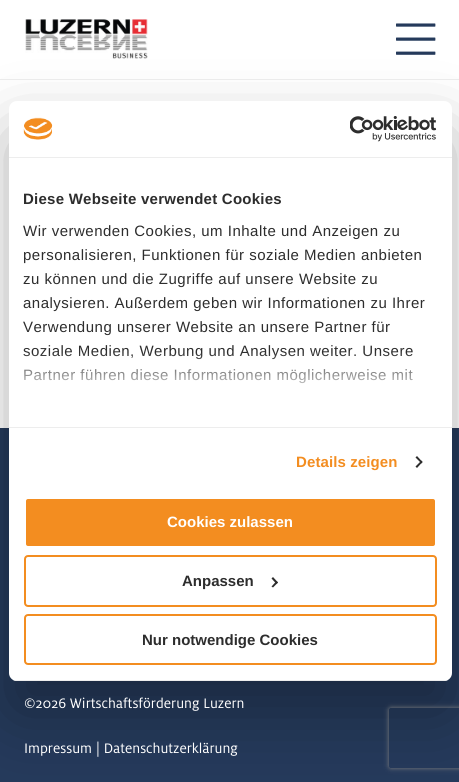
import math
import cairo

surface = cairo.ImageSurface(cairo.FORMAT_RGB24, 459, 782)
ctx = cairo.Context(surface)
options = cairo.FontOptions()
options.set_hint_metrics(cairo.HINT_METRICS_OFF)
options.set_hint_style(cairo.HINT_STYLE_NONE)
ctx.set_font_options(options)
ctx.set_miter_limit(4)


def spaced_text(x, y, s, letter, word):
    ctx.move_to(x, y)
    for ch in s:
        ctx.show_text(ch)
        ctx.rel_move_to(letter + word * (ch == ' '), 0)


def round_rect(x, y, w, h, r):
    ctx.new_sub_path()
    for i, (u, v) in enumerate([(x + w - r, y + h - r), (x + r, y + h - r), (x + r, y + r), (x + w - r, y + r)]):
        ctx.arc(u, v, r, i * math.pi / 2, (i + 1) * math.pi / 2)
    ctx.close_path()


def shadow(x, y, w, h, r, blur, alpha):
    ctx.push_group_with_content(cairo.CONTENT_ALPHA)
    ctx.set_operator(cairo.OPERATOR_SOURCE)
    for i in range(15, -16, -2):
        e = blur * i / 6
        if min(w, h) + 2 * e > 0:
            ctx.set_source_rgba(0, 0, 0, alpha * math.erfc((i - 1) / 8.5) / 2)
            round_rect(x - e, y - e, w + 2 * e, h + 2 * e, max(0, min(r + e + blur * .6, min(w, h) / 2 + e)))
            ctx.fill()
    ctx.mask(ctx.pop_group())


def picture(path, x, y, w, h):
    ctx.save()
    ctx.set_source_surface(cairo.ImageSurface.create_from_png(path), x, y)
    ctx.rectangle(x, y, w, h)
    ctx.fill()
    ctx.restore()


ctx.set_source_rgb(1, 1, 1)
ctx.paint()
ctx.set_source_rgb(0.933, 0.933, 0.933)
ctx.rectangle(0, 79, 459, 1)
ctx.fill()
picture("img1.png", 25, 19, 123, 40)
picture("img2.png", 396, 23, 40, 32)
ctx.set_source_rgb(0.145, 0.227, 0.357)
ctx.rectangle(0, 428, 459, 354)
ctx.fill()
ctx.set_source_rgb(0, 0, 0)
shadow(9, 133, 443, 580, 8, 34, 0.3)
ctx.set_source_rgb(1, 1, 1)
round_rect(9, 101, 443, 580, 8)
ctx.fill()
ctx.set_source_rgb(0.929, 0.929, 0.929)
ctx.rectangle(9, 157, 443, 1)
ctx.fill()
picture("img3.png", 23, 117, 30, 23)
picture("img4.png", 350, 116, 87, 26)
ctx.rectangle(9, 427, 443, 1)
ctx.fill()
ctx.select_font_face("Liberation Sans", cairo.FONT_SLANT_NORMAL, cairo.FONT_WEIGHT_BOLD)
ctx.set_font_size(15)
ctx.set_source_rgb(0.176, 0.176, 0.176)
spaced_text(23, 204, "Diese Webseite verwendet Cookies", 0.25, 0)
ctx.select_font_face("Liberation Sans")
spaced_text(23, 236, "Wir verwenden Cookies, um Inhalte und Anzeigen zu", 0.5, 0)
spaced_text(23, 260, "personalisieren, Funktionen für soziale Medien anbieten", 0.5, 0)
spaced_text(23, 284, "zu können und die Zugriffe auf unsere Website zu", 0.5, 0)
spaced_text(23, 308, "analysieren. Außerdem geben wir Informationen zu Ihrer", 0.5, 0)
spaced_text(23, 332, "Verwendung unserer Website an unsere Partner für", 0.5, 0)
spaced_text(23, 356, "soziale Medien, Werbung und Analysen weiter. Unsere", 0.5, 0)
spaced_text(23, 380, "Partner führen diese Informationen möglicherweise mit", 0.5, 0)
gradient = cairo.LinearGradient(224, 427, 224, 352)
gradient.add_color_stop_rgba(0, 1, 1, 1, 1)
gradient.add_color_stop_rgba(0.5, 1, 1, 1, 0.8)
gradient.add_color_stop_rgba(1, 1, 1, 1, 0)
ctx.set_source(gradient)
ctx.rectangle(23, 353, 390, 31)
ctx.fill()
ctx.select_font_face("Liberation Sans", cairo.FONT_SLANT_NORMAL, cairo.FONT_WEIGHT_BOLD)
ctx.set_source_rgb(0.953, 0.553, 0.125)
spaced_text(296, 467, "Details zeigen", 0.1, 0)
ctx.set_source_rgb(0.176, 0.176, 0.176)
ctx.new_path()
ctx.move_to(417, 456)
ctx.line_to(422.5, 462)
ctx.line_to(421.5, 463.5)
ctx.line_to(415.5, 457.5)
ctx.close_path()
ctx.fill()
ctx.new_path()
ctx.move_to(421.5, 460.5)
ctx.line_to(422.5, 462)
ctx.line_to(417, 468)
ctx.line_to(415.5, 466.5)
ctx.close_path()
ctx.fill()
ctx.save()
round_rect(9, 101, 443, 580, 8)
ctx.clip()
ctx.set_source_rgb(0.929, 0.929, 0.929)
ctx.rectangle(9, 680, 443, 1)
ctx.fill()
ctx.restore()
ctx.set_source_rgb(0.953, 0.553, 0.125)
round_rect(25, 498, 411, 49, 3)
ctx.fill_preserve()
ctx.set_source_rgb(1, 1, 1)
ctx.stroke()
ctx.move_to(167, 527)
ctx.show_text("Cookies zulassen")
round_rect(25, 556, 411, 50, 3)
ctx.set_source_rgb(0.953, 0.553, 0.125)
ctx.stroke()
ctx.set_source_rgb(0.176, 0.176, 0.176)
ctx.move_to(182, 586)
ctx.show_text("Anpassen")
ctx.new_path()
ctx.move_to(273, 577)
ctx.line_to(278, 582.5)
ctx.line_to(276.5, 584)
ctx.line_to(271.5, 578.5)
ctx.close_path()
ctx.fill()
ctx.new_path()
ctx.move_to(276.5, 581)
ctx.line_to(278, 582.5)
ctx.line_to(273, 587.5)
ctx.line_to(271.5, 586.5)
ctx.close_path()
ctx.fill()
round_rect(25, 615, 411, 49, 3)
ctx.set_source_rgb(0.953, 0.553, 0.125)
ctx.stroke()
ctx.set_source_rgb(0.176, 0.176, 0.176)
ctx.move_to(142, 645)
ctx.show_text("Nur notwendige Cookies")
ctx.select_font_face("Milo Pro")
ctx.set_font_size(15.25)
ctx.set_source_rgb(1, 1, 1)
ctx.move_to(24, 708)
ctx.show_text("©2026 Wirtschaftsförderung Luzern")
ctx.move_to(24, 753)
ctx.show_text("Impressum | Datenschutzerklärung")
ctx.save()
ctx.set_fill_rule(cairo.FILL_RULE_EVEN_ODD)
ctx.new_path()
ctx.move_to(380, 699)
ctx.line_to(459, 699)
ctx.line_to(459, 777)
ctx.line_to(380, 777)
ctx.close_path()
ctx.move_to(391, 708)
ctx.line_to(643, 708)
ctx.curve_to(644, 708, 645, 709, 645, 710)
ctx.line_to(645, 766)
ctx.curve_to(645, 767, 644, 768, 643, 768)
ctx.line_to(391, 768)
ctx.curve_to(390, 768, 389, 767, 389, 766)
ctx.line_to(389, 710)
ctx.curve_to(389, 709, 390, 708, 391, 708)
ctx.close_path()
ctx.clip()
ctx.set_source_rgb(0.502, 0.502, 0.502)
shadow(389, 708, 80, 60, 2, 2.5, 1)
ctx.restore()
surface.write_to_png("page.png")
